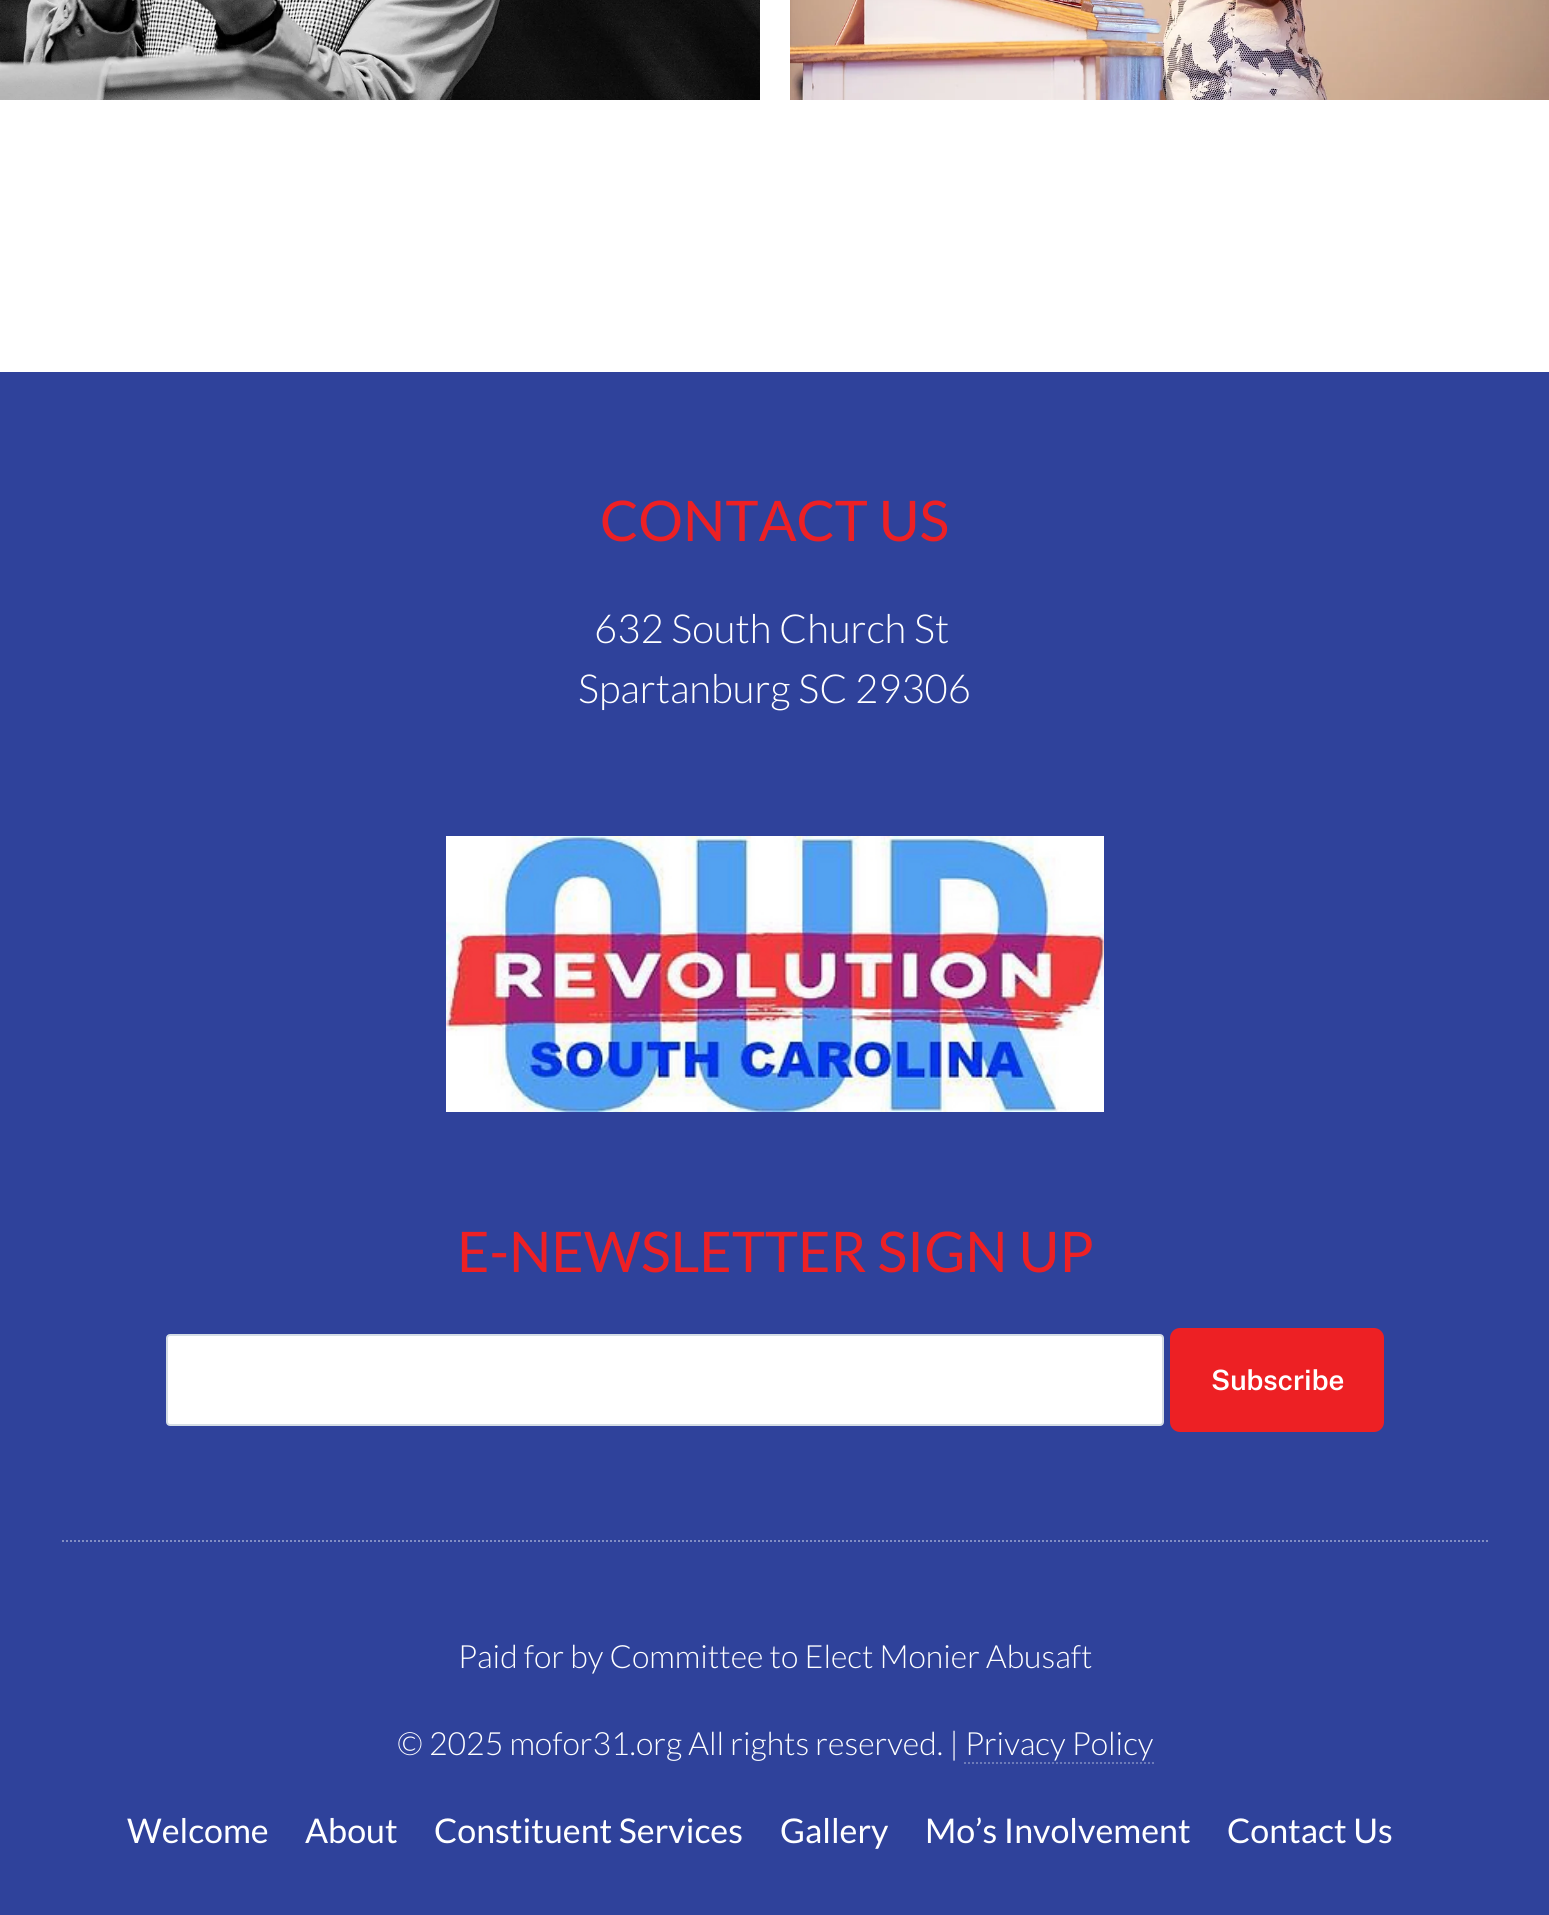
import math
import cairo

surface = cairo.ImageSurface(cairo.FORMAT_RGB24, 1549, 1915)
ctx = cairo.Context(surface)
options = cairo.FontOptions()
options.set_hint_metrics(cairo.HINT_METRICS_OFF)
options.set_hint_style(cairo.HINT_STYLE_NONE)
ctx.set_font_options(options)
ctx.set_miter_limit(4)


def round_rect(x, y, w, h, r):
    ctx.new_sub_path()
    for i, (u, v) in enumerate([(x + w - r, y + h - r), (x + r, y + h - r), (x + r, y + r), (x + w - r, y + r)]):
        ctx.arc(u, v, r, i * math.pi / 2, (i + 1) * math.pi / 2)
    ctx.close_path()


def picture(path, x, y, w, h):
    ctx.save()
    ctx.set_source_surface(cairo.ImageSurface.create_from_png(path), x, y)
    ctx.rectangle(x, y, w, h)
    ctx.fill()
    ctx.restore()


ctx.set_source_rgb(1, 1, 1)
ctx.paint()
picture("img1.png", 0, 0, 760, 100)
picture("img2.png", 790, 0, 759, 100)
ctx.set_source_rgb(0.184, 0.259, 0.608)
ctx.rectangle(0, 372, 1549, 1543)
ctx.fill()
ctx.select_font_face("Lato")
ctx.set_font_size(56)
ctx.set_source_rgb(0.929, 0.125, 0.141)
ctx.move_to(600, 541)
ctx.show_text("CONTACT US")
ctx.select_font_face("Lato Light")
ctx.set_font_size(40)
ctx.set_source_rgb(1, 1, 1)
ctx.move_to(594, 643)
ctx.show_text("632 South Church St")
ctx.move_to(578, 703)
ctx.show_text("Spartanburg SC 29306")
picture("img3.png", 446, 836, 658, 276)
ctx.select_font_face("Lato")
ctx.set_font_size(56)
ctx.set_source_rgb(0.929, 0.125, 0.141)
ctx.move_to(457, 1272)
ctx.show_text("E-NEWSLETTER SIGN UP")
ctx.set_source_rgb(1, 1, 1)
round_rect(167, 1335, 996, 90, 3)
ctx.fill_preserve()
ctx.set_source_rgb(0.831, 0.867, 0.898)
ctx.stroke()
ctx.set_source_rgb(0.929, 0.125, 0.141)
round_rect(1170, 1328, 214, 104, 10)
ctx.fill()
ctx.select_font_face("Public Sans SemiBold")
ctx.set_font_size(28)
ctx.set_source_rgb(1, 1, 1)
ctx.move_to(1211, 1390)
ctx.show_text("Subscribe")
ctx.new_path()
ctx.move_to(62, 1541)
ctx.line_to(1488, 1541)
ctx.set_source_rgb(0.51, 0.557, 0.765)
ctx.set_dash([2, 2])
ctx.stroke()
ctx.select_font_face("Lato Light")
ctx.set_font_size(32)
ctx.set_source_rgb(1, 1, 1)
ctx.move_to(458, 1668)
ctx.show_text("Paid for by Committee to Elect Monier Abusaft")
ctx.move_to(397, 1755)
ctx.show_text("© 2025 mofor31.org All rights reserved. | Privacy Policy")
ctx.new_path()
ctx.move_to(964, 1763)
ctx.line_to(1154, 1763)
ctx.set_source_rgb(0.427, 0.482, 0.725)
ctx.stroke()
ctx.select_font_face("Lato")
ctx.set_font_size(34)
ctx.set_source_rgb(1, 1, 1)
ctx.move_to(127, 1843)
ctx.show_text("Welcome")
ctx.move_to(305, 1843)
ctx.show_text("About")
ctx.move_to(434, 1843)
ctx.show_text("Constituent Services")
ctx.move_to(780, 1843)
ctx.show_text("Gallery")
ctx.move_to(925, 1843)
ctx.show_text("Mo’s Involvement")
ctx.move_to(1227, 1843)
ctx.show_text("Contact Us")
surface.write_to_png("page.png")
